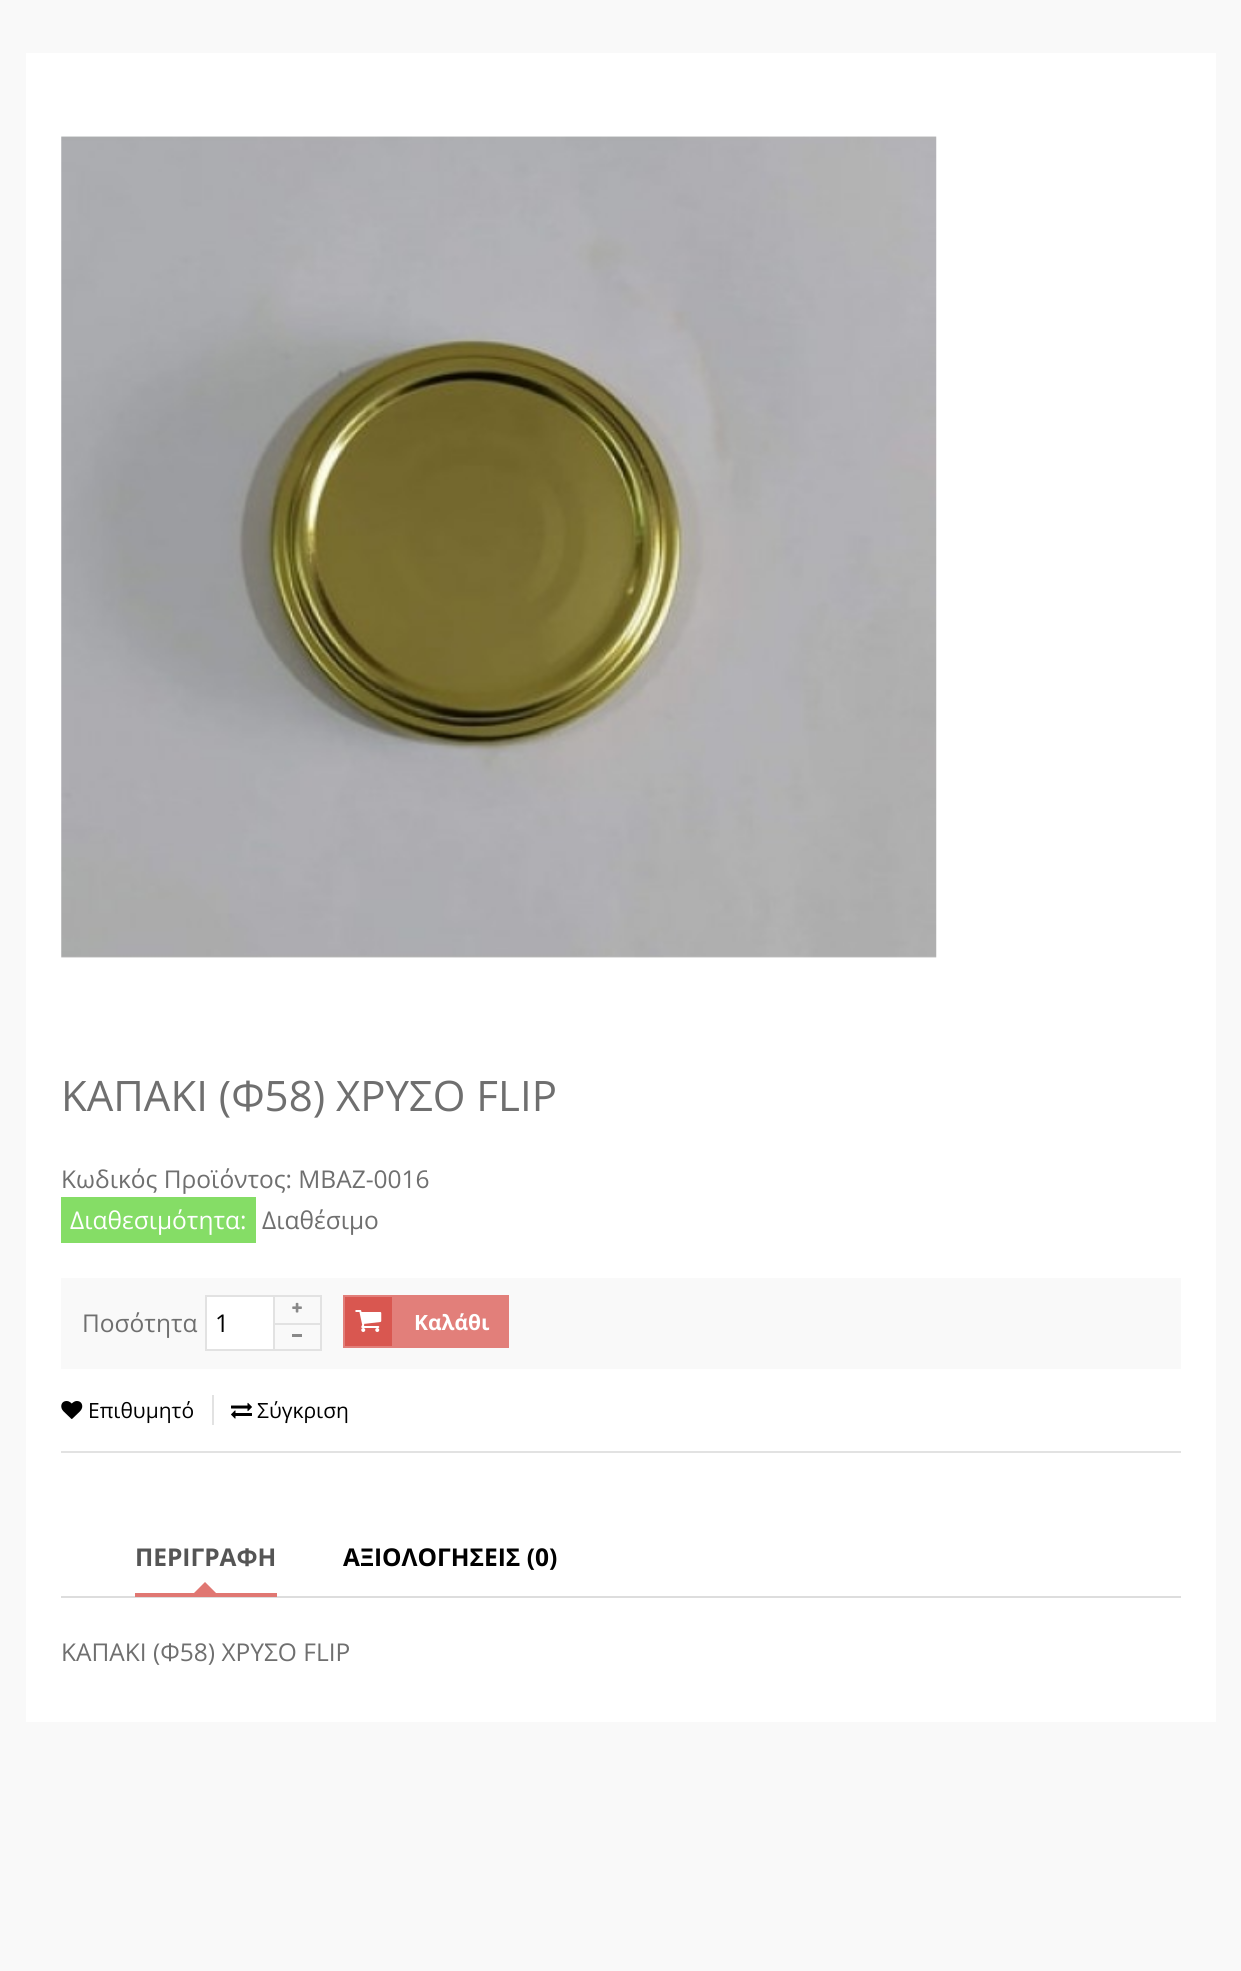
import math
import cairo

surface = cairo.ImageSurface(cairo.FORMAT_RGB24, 1241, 1971)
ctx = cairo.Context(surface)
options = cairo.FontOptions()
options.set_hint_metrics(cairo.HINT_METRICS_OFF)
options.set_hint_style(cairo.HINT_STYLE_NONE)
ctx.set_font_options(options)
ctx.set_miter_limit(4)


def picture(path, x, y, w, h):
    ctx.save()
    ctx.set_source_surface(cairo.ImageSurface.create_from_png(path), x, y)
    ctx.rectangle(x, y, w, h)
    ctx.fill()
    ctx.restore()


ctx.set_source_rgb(0.973, 0.973, 0.973)
ctx.paint()
ctx.set_source_rgb(1, 1, 1)
ctx.rectangle(26, 53, 1190, 1669)
ctx.fill()
picture("img1.png", 61, 136, 876, 822)
ctx.select_font_face("Open Sans")
ctx.set_font_size(42)
ctx.set_source_rgb(0.435, 0.435, 0.435)
ctx.move_to(61, 1111)
ctx.show_text("ΚΑΠΑΚΙ (Φ58) ΧΡΥΣΟ FLIP")
ctx.set_font_size(24.5)
ctx.move_to(61, 1188)
ctx.show_text("Κωδικός Προϊόντος: MBAZ-0016")
ctx.set_source_rgb(0.522, 0.867, 0.4)
ctx.rectangle(61, 1197, 195, 46)
ctx.fill()
ctx.set_source_rgb(1, 1, 1)
ctx.move_to(70, 1229)
ctx.show_text("Διαθεσιμότητα:")
ctx.set_source_rgb(0.435, 0.435, 0.435)
ctx.move_to(262, 1229)
ctx.show_text("Διαθέσιμο")
ctx.set_source_rgb(0.973, 0.973, 0.973)
ctx.rectangle(61, 1278, 1120, 91)
ctx.fill()
ctx.set_source_rgb(0.435, 0.435, 0.435)
ctx.move_to(82, 1332)
ctx.show_text("Ποσότητα")
ctx.set_source_rgb(1, 1, 1)
ctx.rectangle(206, 1296, 68, 54)
ctx.fill_preserve()
ctx.set_source_rgb(0.886, 0.886, 0.886)
ctx.stroke()
ctx.set_source_rgb(0, 0, 0)
ctx.move_to(215, 1332)
ctx.show_text("1")
ctx.set_source_rgb(0.886, 0.886, 0.886)
ctx.rectangle(275, 1295, 47, 2)
ctx.fill()
ctx.rectangle(320, 1295, 2, 28)
ctx.fill()
picture("img2.png", 292, 1302, 10, 11)
ctx.rectangle(275, 1323, 47, 2)
ctx.fill()
ctx.rectangle(320, 1323, 2, 28)
ctx.fill()
ctx.rectangle(275, 1349, 47, 2)
ctx.fill()
ctx.set_source_rgb(0.537, 0.537, 0.537)
ctx.rectangle(292, 1334, 10, 3)
ctx.fill()
ctx.set_source_rgb(0.886, 0.498, 0.478)
ctx.rectangle(343, 1295, 166, 53)
ctx.fill()
ctx.set_source_rgb(0.851, 0.341, 0.314)
ctx.rectangle(345, 1297, 47, 49)
ctx.fill()
picture("img3.png", 355, 1310, 27, 22)
ctx.select_font_face("Open Sans", cairo.FONT_SLANT_NORMAL, cairo.FONT_WEIGHT_BOLD)
ctx.set_font_size(21)
ctx.set_source_rgb(1, 1, 1)
ctx.move_to(414, 1330)
ctx.show_text("Καλάθι")
ctx.set_source_rgb(0.886, 0.886, 0.886)
ctx.rectangle(61, 1451, 1120, 2)
ctx.fill()
ctx.rectangle(212, 1395, 2, 30)
ctx.fill()
picture("img4.png", 61, 1401, 22, 18)
ctx.select_font_face("Open Sans")
ctx.set_source_rgb(0, 0, 0)
ctx.move_to(88, 1418)
ctx.show_text("Επιθυμητό")
picture("img5.png", 231, 1402, 21, 17)
ctx.move_to(257, 1418)
ctx.show_text("Σύγκριση")
ctx.set_source_rgb(0.867, 0.867, 0.867)
ctx.rectangle(61, 1596, 1120, 2)
ctx.fill()
ctx.set_source_rgb(0.878, 0.467, 0.447)
ctx.rectangle(135, 1593, 142, 4)
ctx.fill()
ctx.select_font_face("Open Sans", cairo.FONT_SLANT_NORMAL, cairo.FONT_WEIGHT_BOLD)
ctx.set_font_size(24.5)
ctx.set_source_rgb(0.333, 0.333, 0.333)
ctx.move_to(135, 1566)
ctx.show_text("ΠΕΡΙΓΡΑΦΗ")
ctx.set_source_rgb(0.878, 0.467, 0.447)
ctx.new_path()
ctx.move_to(219, 1596)
ctx.line_to(191, 1596)
ctx.line_to(205, 1582)
ctx.close_path()
ctx.fill()
ctx.set_source_rgb(0, 0, 0)
ctx.move_to(343, 1566)
ctx.show_text("ΑΞΙΟΛΟΓΗΣΕΙΣ (0)")
ctx.select_font_face("Open Sans")
ctx.set_source_rgb(0.435, 0.435, 0.435)
ctx.move_to(61, 1661)
ctx.show_text("ΚΑΠΑΚΙ (Φ58) ΧΡΥΣΟ FLIP")
surface.write_to_png("page.png")
